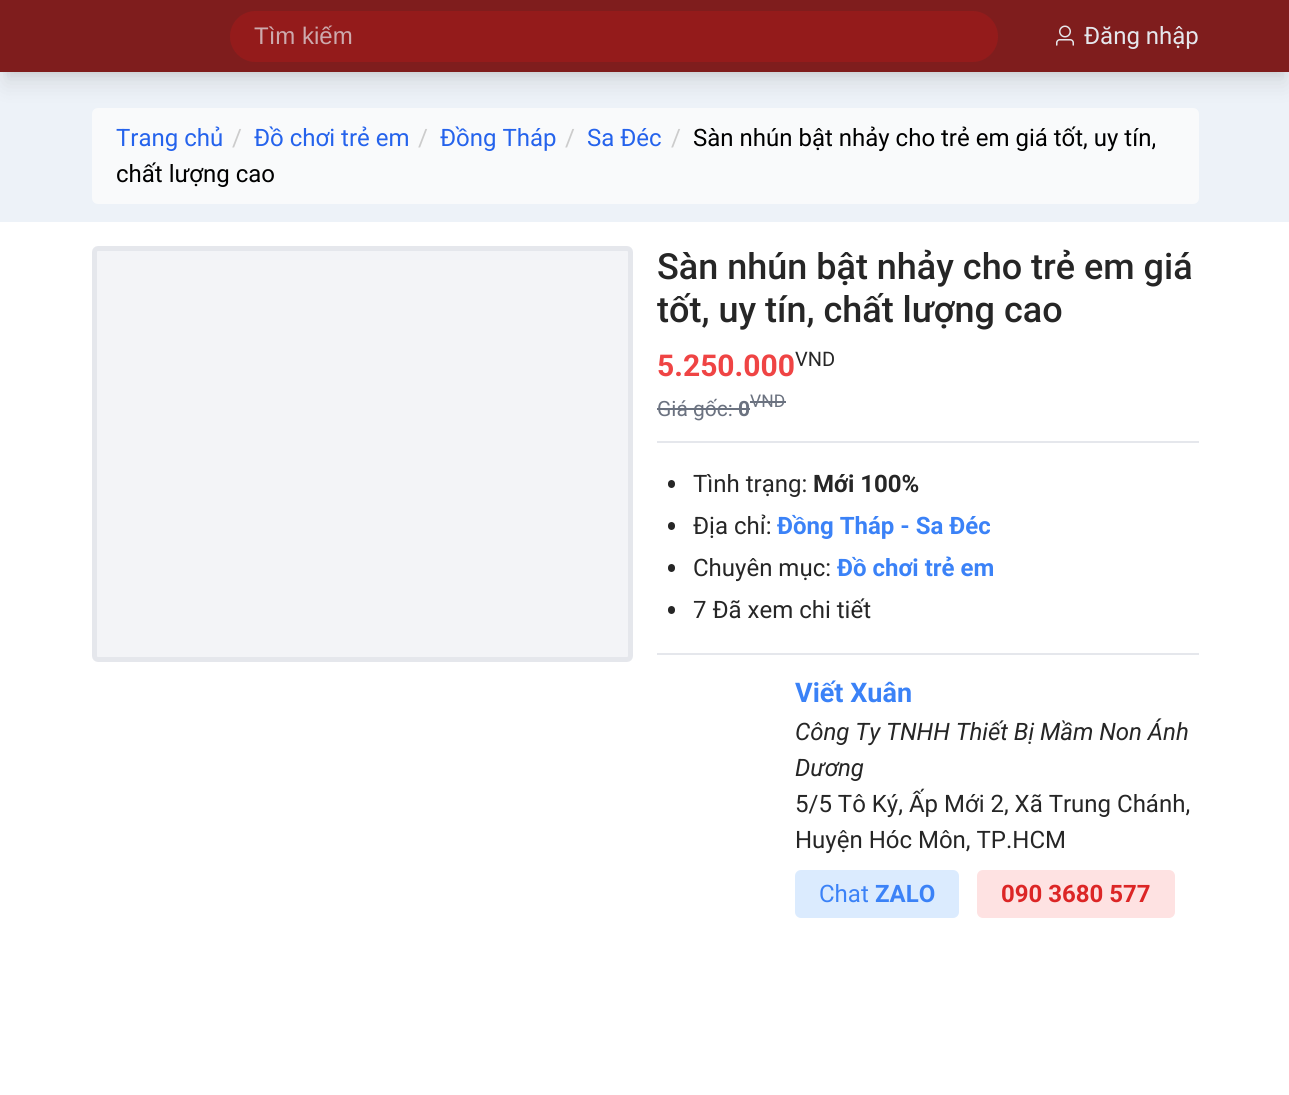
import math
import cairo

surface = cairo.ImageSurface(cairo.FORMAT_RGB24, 1289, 1095)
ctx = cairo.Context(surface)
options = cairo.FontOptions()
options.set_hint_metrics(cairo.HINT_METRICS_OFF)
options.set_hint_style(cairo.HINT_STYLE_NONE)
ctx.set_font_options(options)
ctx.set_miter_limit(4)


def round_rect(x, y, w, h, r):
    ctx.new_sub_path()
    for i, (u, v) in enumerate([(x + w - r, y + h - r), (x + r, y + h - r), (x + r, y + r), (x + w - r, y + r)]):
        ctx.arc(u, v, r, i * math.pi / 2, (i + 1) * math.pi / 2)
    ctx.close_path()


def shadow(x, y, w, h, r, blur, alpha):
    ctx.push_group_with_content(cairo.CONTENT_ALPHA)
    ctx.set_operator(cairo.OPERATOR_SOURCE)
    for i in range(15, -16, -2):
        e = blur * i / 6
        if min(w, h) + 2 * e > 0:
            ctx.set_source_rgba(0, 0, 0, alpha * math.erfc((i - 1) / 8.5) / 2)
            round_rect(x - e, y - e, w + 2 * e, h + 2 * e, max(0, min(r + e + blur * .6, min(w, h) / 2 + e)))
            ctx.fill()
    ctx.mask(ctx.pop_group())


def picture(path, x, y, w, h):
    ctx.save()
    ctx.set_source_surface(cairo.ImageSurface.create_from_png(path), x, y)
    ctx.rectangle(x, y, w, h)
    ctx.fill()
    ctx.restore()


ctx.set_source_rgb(0.929, 0.949, 0.969)
ctx.paint()
ctx.set_source_rgb(0, 0, 0)
shadow(6, 12, 1278, 60, 0, 4.5, 0.1)
ctx.set_source_rgb(0.976, 0.98, 0.984)
round_rect(92, 108, 1107, 96, 6)
ctx.fill()
ctx.set_source_rgb(0, 0, 0)
shadow(5, 20, 1281, 63, 0, 11, 0.1)
ctx.set_source_rgb(0.498, 0.114, 0.114)
ctx.rectangle(0, 0, 1289, 72)
ctx.fill()
ctx.set_source_rgb(0.58, 0.106, 0.106)
round_rect(230, 11, 768, 51, 25.5)
ctx.fill()
ctx.select_font_face("Liberation Sans")
ctx.set_font_size(24)
ctx.set_source_rgb(0.804, 0.667, 0.678)
ctx.move_to(254, 44)
ctx.show_text("Tìm kiếm")
picture("img1.png", 1056, 25, 18, 21)
ctx.select_font_face("Roboto")
ctx.set_source_rgb(0.898, 0.906, 0.922)
ctx.move_to(1084, 44)
ctx.show_text("Đăng nhập")
ctx.set_source_rgb(0.145, 0.388, 0.922)
ctx.move_to(116, 146)
ctx.show_text("Trang chủ")
ctx.set_source_rgb(0.8, 0.8, 0.8)
ctx.move_to(232, 146)
ctx.show_text("/")
ctx.set_source_rgb(0.145, 0.388, 0.922)
ctx.move_to(254, 146)
ctx.show_text("Đồ chơi trẻ em")
ctx.set_source_rgb(0.8, 0.8, 0.8)
ctx.move_to(418, 146)
ctx.show_text("/")
ctx.set_source_rgb(0.145, 0.388, 0.922)
ctx.move_to(440, 146)
ctx.show_text("Đồng Tháp")
ctx.set_source_rgb(0.8, 0.8, 0.8)
ctx.move_to(565, 146)
ctx.show_text("/")
ctx.set_source_rgb(0.145, 0.388, 0.922)
ctx.move_to(587, 146)
ctx.show_text("Sa Đéc")
ctx.set_source_rgb(0.8, 0.8, 0.8)
ctx.move_to(671, 146)
ctx.show_text("/")
ctx.set_source_rgb(0, 0, 0)
ctx.move_to(693, 146)
ctx.show_text("Sàn nhún bật nhảy cho trẻ em giá tốt, uy tín,")
ctx.move_to(116, 182)
ctx.show_text("chất lượng cao")
ctx.set_source_rgb(1, 1, 1)
ctx.rectangle(0, 222, 1289, 873)
ctx.fill()
ctx.set_source_rgb(0.953, 0.957, 0.965)
round_rect(94.5, 248.5, 536, 411, 3.5)
ctx.fill_preserve()
ctx.set_source_rgb(0.898, 0.906, 0.922)
ctx.set_line_width(5)
ctx.stroke()
ctx.select_font_face("Roboto Medium")
ctx.set_font_size(36)
ctx.set_source_rgb(0.149, 0.149, 0.149)
ctx.move_to(657, 279)
ctx.show_text("Sàn nhún bật nhảy cho trẻ em giá")
ctx.move_to(657, 322)
ctx.show_text("tốt, uy tín, chất lượng cao")
ctx.select_font_face("Roboto", cairo.FONT_SLANT_NORMAL, cairo.FONT_WEIGHT_BOLD)
ctx.set_font_size(30)
ctx.set_source_rgb(0.937, 0.267, 0.267)
ctx.move_to(657, 376)
ctx.show_text("5.250.000")
ctx.select_font_face("Roboto")
ctx.set_font_size(20)
ctx.set_source_rgb(0.149, 0.149, 0.149)
ctx.move_to(795, 366)
ctx.show_text("VND")
ctx.set_font_size(21)
ctx.set_source_rgb(0.42, 0.447, 0.502)
ctx.move_to(657, 416)
ctx.show_text("Giá gốc:")
ctx.rectangle(657, 408, 81, 2)
ctx.fill()
ctx.select_font_face("Roboto", cairo.FONT_SLANT_NORMAL, cairo.FONT_WEIGHT_BOLD)
ctx.move_to(738, 416)
ctx.show_text("0")
ctx.rectangle(738, 408, 12, 2)
ctx.fill()
ctx.select_font_face("Roboto")
ctx.set_font_size(17.5)
ctx.move_to(750, 407)
ctx.show_text("VND")
ctx.rectangle(750, 401, 36, 2)
ctx.fill()
ctx.set_source_rgb(0.898, 0.906, 0.922)
ctx.rectangle(657, 441, 542, 2)
ctx.fill()
ctx.set_source_rgb(0.149, 0.149, 0.149)
round_rect(668, 480, 7, 8, 3.5)
ctx.fill()
ctx.set_font_size(24)
ctx.move_to(693, 492)
ctx.show_text("Tình trạng:")
ctx.select_font_face("Roboto", cairo.FONT_SLANT_NORMAL, cairo.FONT_WEIGHT_BOLD)
ctx.move_to(813, 492)
ctx.show_text("Mới 100%")
round_rect(668, 522, 7, 8, 3.5)
ctx.fill()
ctx.select_font_face("Roboto")
ctx.move_to(693, 534)
ctx.show_text("Địa chỉ:")
ctx.select_font_face("Roboto", cairo.FONT_SLANT_NORMAL, cairo.FONT_WEIGHT_BOLD)
ctx.set_source_rgb(0.231, 0.51, 0.965)
ctx.move_to(777, 534)
ctx.show_text("Đồng Tháp - Sa Đéc")
ctx.set_source_rgb(0.149, 0.149, 0.149)
round_rect(668, 564, 7, 8, 3.5)
ctx.fill()
ctx.select_font_face("Roboto")
ctx.move_to(693, 576)
ctx.show_text("Chuyên mục:")
ctx.select_font_face("Roboto", cairo.FONT_SLANT_NORMAL, cairo.FONT_WEIGHT_BOLD)
ctx.set_source_rgb(0.231, 0.51, 0.965)
ctx.move_to(837, 576)
ctx.show_text("Đồ chơi trẻ em")
ctx.set_source_rgb(0.149, 0.149, 0.149)
round_rect(668, 606, 7, 8, 3.5)
ctx.fill()
ctx.select_font_face("Roboto")
ctx.move_to(693, 618)
ctx.show_text("7 Đã xem chi tiết")
ctx.set_source_rgb(0.898, 0.906, 0.922)
ctx.rectangle(657, 653, 542, 2)
ctx.fill()
ctx.select_font_face("Roboto", cairo.FONT_SLANT_NORMAL, cairo.FONT_WEIGHT_BOLD)
ctx.set_font_size(27)
ctx.set_source_rgb(0.231, 0.51, 0.965)
ctx.move_to(795, 702)
ctx.show_text("Viết Xuân")
ctx.select_font_face("Roboto", cairo.FONT_SLANT_ITALIC)
ctx.set_font_size(24)
ctx.set_source_rgb(0.149, 0.149, 0.149)
ctx.move_to(795, 740)
ctx.show_text("Công Ty TNHH Thiết Bị Mầm Non Ánh")
ctx.move_to(795, 776)
ctx.show_text("Dương")
ctx.select_font_face("Roboto")
ctx.move_to(795, 812)
ctx.show_text("5/5 Tô Ký, Ấp Mới 2, Xã Trung Chánh,")
ctx.move_to(795, 848)
ctx.show_text("Huyện Hóc Môn, TP.HCM")
ctx.set_source_rgb(0.859, 0.918, 0.996)
round_rect(795, 870, 164, 48, 6)
ctx.fill()
ctx.set_source_rgb(0.231, 0.51, 0.965)
ctx.move_to(819, 902)
ctx.show_text("Chat")
ctx.select_font_face("Roboto", cairo.FONT_SLANT_NORMAL, cairo.FONT_WEIGHT_BOLD)
ctx.move_to(875, 902)
ctx.show_text("ZALO")
ctx.set_source_rgb(0.996, 0.886, 0.886)
round_rect(977, 870, 198, 48, 6)
ctx.fill()
ctx.set_source_rgb(0.863, 0.149, 0.149)
ctx.move_to(1001, 902)
ctx.show_text("090 3680 577")
surface.write_to_png("page.png")
